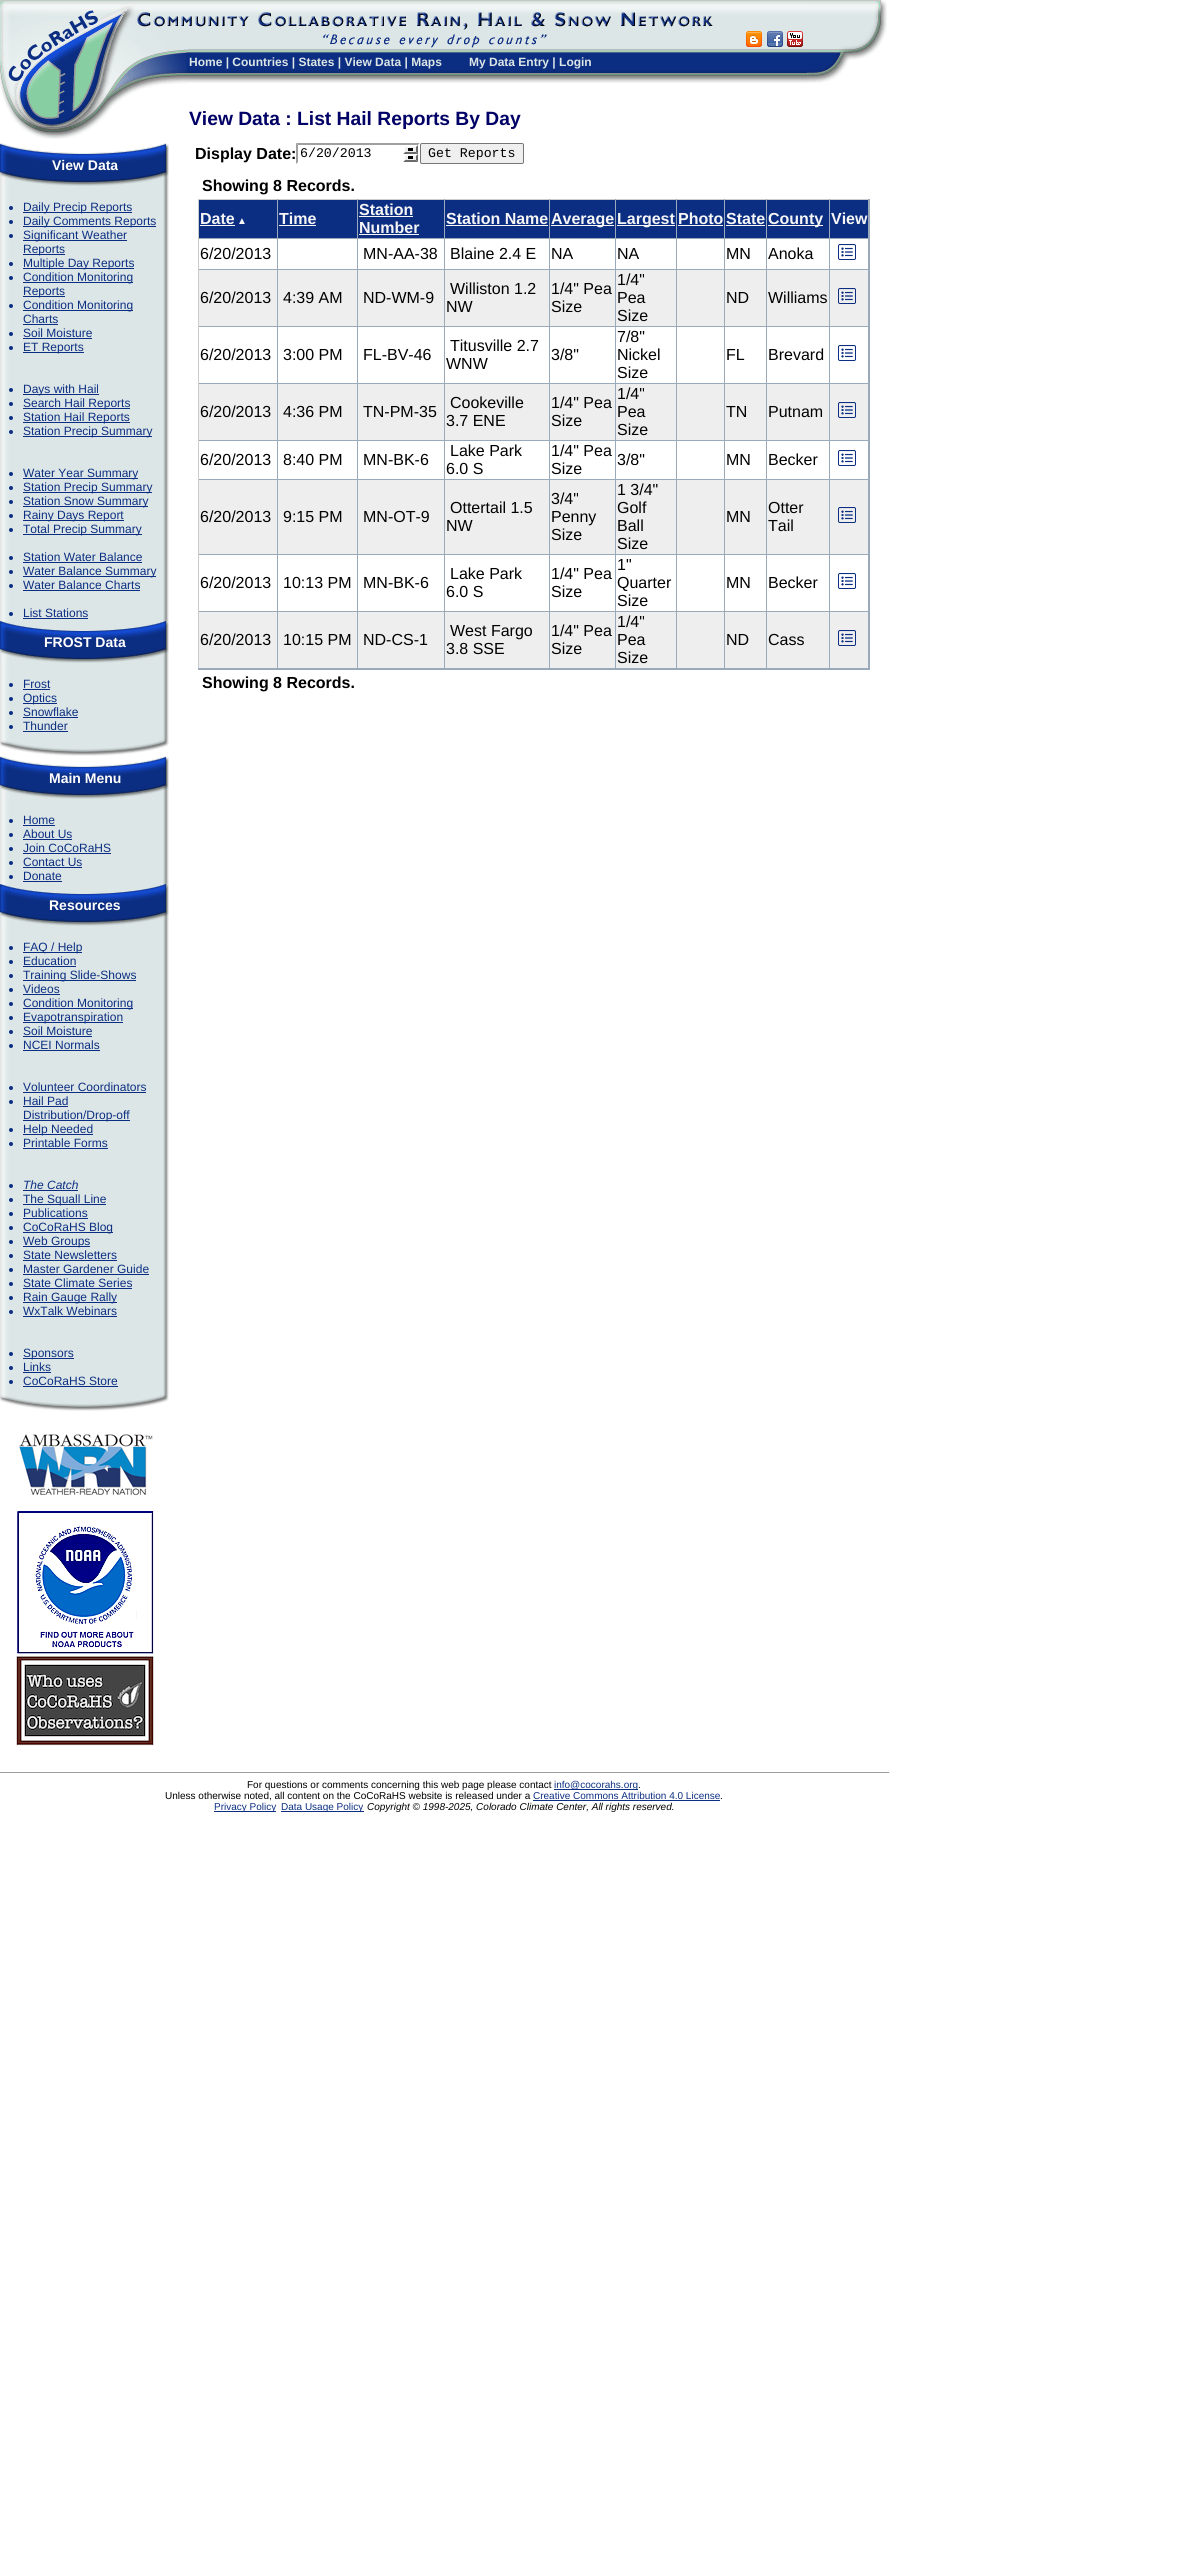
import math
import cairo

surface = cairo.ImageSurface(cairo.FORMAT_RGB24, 1199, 2569)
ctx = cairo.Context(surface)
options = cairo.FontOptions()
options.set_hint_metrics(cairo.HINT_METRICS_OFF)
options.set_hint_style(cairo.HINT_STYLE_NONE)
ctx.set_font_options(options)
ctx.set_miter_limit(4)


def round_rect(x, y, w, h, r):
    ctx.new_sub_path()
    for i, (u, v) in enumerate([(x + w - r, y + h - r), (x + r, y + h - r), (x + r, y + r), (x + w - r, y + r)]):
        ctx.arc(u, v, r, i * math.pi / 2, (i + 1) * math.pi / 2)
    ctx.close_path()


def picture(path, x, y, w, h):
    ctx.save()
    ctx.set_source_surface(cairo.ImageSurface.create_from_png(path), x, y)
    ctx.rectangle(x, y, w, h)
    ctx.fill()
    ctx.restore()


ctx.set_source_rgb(1, 1, 1)
ctx.paint()
picture("img1.png", 0, 0, 135, 139)
picture("img2.png", 135, 0, 601, 51)
picture("img3.png", 135, 12, 578, 39)
picture("img4.png", 736, 0, 70, 51)
picture("img5.png", 746, 31, 16, 16)
picture("img6.png", 767, 31, 16, 16)
picture("img7.png", 787, 31, 16, 16)
picture("img8.png", 806, 0, 81, 83)
picture("img9.png", 187, 51, 2, 32)
picture("img10.png", 135, 51, 52, 41)
picture("img11.png", 189, 51, 547, 32)
ctx.select_font_face("Liberation Sans", cairo.FONT_SLANT_NORMAL, cairo.FONT_WEIGHT_BOLD)
ctx.set_font_size(12)
ctx.set_source_rgb(0.863, 0.902, 0.902)
ctx.move_to(189, 66)
ctx.show_text("Home | Countries | States | View Data | Maps")
ctx.move_to(469, 66)
ctx.show_text("My Data Entry | Login")
picture("img12.png", 736, 51, 70, 32)
ctx.set_font_size(19.25)
ctx.set_source_rgb(0, 0, 0.4)
ctx.move_to(189, 125)
ctx.show_text("View Data : List Hail Reports By Day")
picture("img13.png", 0, 186, 169, 553)
picture("img14.png", 0, 143, 169, 43)
ctx.set_font_size(14)
ctx.set_source_rgb(1, 1, 1)
ctx.move_to(52, 170)
ctx.show_text("View Data")
ctx.set_source_rgb(0.047, 0.18, 0.51)
ctx.new_path()
ctx.arc(11, 208, 2, 0, 2 * math.pi)
ctx.fill()
ctx.rectangle(23, 212, 109, 1)
ctx.fill()
ctx.select_font_face("Liberation Sans")
ctx.set_font_size(12)
ctx.move_to(23, 211)
ctx.show_text("Daily Precip Reports")
ctx.new_path()
ctx.arc(11, 222, 2, 0, 2 * math.pi)
ctx.fill()
ctx.rectangle(23, 226, 133, 1)
ctx.fill()
ctx.move_to(23, 225)
ctx.show_text("Daily Comments Reports")
ctx.new_path()
ctx.arc(11, 236, 2, 0, 2 * math.pi)
ctx.fill()
ctx.rectangle(23, 240, 104, 1)
ctx.fill()
ctx.move_to(23, 239)
ctx.show_text("Significant Weather")
ctx.rectangle(23, 254, 42, 1)
ctx.fill()
ctx.move_to(23, 253)
ctx.show_text("Reports")
ctx.new_path()
ctx.arc(11, 264, 2, 0, 2 * math.pi)
ctx.fill()
ctx.rectangle(23, 268, 111, 1)
ctx.fill()
ctx.move_to(23, 267)
ctx.show_text("Multiple Day Reports")
ctx.new_path()
ctx.arc(11, 278, 2, 0, 2 * math.pi)
ctx.fill()
ctx.rectangle(23, 282, 110, 1)
ctx.fill()
ctx.move_to(23, 281)
ctx.show_text("Condition Monitoring")
ctx.rectangle(23, 296, 42, 1)
ctx.fill()
ctx.move_to(23, 295)
ctx.show_text("Reports")
ctx.new_path()
ctx.arc(11, 306, 2, 0, 2 * math.pi)
ctx.fill()
ctx.rectangle(23, 310, 110, 1)
ctx.fill()
ctx.move_to(23, 309)
ctx.show_text("Condition Monitoring")
ctx.move_to(23, 323)
ctx.show_text("Charts")
ctx.rectangle(23, 324, 35, 1)
ctx.fill()
ctx.arc(11, 334, 2, 0, 2 * math.pi)
ctx.fill()
ctx.move_to(23, 337)
ctx.show_text("Soil Moisture")
ctx.rectangle(23, 338, 69, 1)
ctx.fill()
ctx.arc(11, 348, 2, 0, 2 * math.pi)
ctx.fill()
ctx.rectangle(23, 352, 61, 1)
ctx.fill()
ctx.move_to(23, 351)
ctx.show_text("ET Reports")
ctx.new_path()
ctx.arc(11, 390, 2, 0, 2 * math.pi)
ctx.fill()
ctx.rectangle(23, 394, 76, 1)
ctx.fill()
ctx.move_to(23, 393)
ctx.show_text("Days with Hail")
ctx.new_path()
ctx.arc(11, 404, 2, 0, 2 * math.pi)
ctx.fill()
ctx.rectangle(23, 408, 107, 1)
ctx.fill()
ctx.move_to(23, 407)
ctx.show_text("Search Hail Reports")
ctx.new_path()
ctx.arc(11, 418, 2, 0, 2 * math.pi)
ctx.fill()
ctx.rectangle(23, 422, 107, 1)
ctx.fill()
ctx.move_to(23, 421)
ctx.show_text("Station Hail Reports")
ctx.new_path()
ctx.arc(11, 432, 2, 0, 2 * math.pi)
ctx.fill()
ctx.rectangle(23, 436, 129, 1)
ctx.fill()
ctx.move_to(23, 435)
ctx.show_text("Station Precip Summary")
ctx.new_path()
ctx.arc(11, 474, 2, 0, 2 * math.pi)
ctx.fill()
ctx.rectangle(23, 478, 115, 1)
ctx.fill()
ctx.move_to(23, 477)
ctx.show_text("Water Year Summary")
ctx.new_path()
ctx.arc(11, 488, 2, 0, 2 * math.pi)
ctx.fill()
ctx.rectangle(23, 492, 129, 1)
ctx.fill()
ctx.move_to(23, 491)
ctx.show_text("Station Precip Summary")
ctx.new_path()
ctx.arc(11, 502, 2, 0, 2 * math.pi)
ctx.fill()
ctx.rectangle(23, 506, 125, 1)
ctx.fill()
ctx.move_to(23, 505)
ctx.show_text("Station Snow Summary")
ctx.new_path()
ctx.arc(11, 516, 2, 0, 2 * math.pi)
ctx.fill()
ctx.rectangle(23, 520, 101, 1)
ctx.fill()
ctx.move_to(23, 519)
ctx.show_text("Rainy Days Report")
ctx.new_path()
ctx.arc(11, 530, 2, 0, 2 * math.pi)
ctx.fill()
ctx.rectangle(23, 534, 119, 1)
ctx.fill()
ctx.move_to(23, 533)
ctx.show_text("Total Precip Summary")
ctx.new_path()
ctx.arc(11, 558, 2, 0, 2 * math.pi)
ctx.fill()
ctx.move_to(23, 561)
ctx.show_text("Station Water Balance")
ctx.rectangle(23, 562, 119, 1)
ctx.fill()
ctx.arc(11, 572, 2, 0, 2 * math.pi)
ctx.fill()
ctx.rectangle(23, 576, 133, 1)
ctx.fill()
ctx.move_to(23, 575)
ctx.show_text("Water Balance Summary")
ctx.new_path()
ctx.arc(11, 586, 2, 0, 2 * math.pi)
ctx.fill()
ctx.move_to(23, 589)
ctx.show_text("Water Balance Charts")
ctx.rectangle(23, 590, 117, 1)
ctx.fill()
ctx.arc(11, 614, 2, 0, 2 * math.pi)
ctx.fill()
ctx.move_to(23, 617)
ctx.show_text("List Stations")
ctx.rectangle(23, 618, 65, 1)
ctx.fill()
picture("img15.png", 0, 620, 169, 43)
ctx.select_font_face("Liberation Sans", cairo.FONT_SLANT_NORMAL, cairo.FONT_WEIGHT_BOLD)
ctx.set_font_size(14)
ctx.set_source_rgb(1, 1, 1)
ctx.move_to(44, 647)
ctx.show_text("FROST Data")
ctx.set_source_rgb(0.047, 0.18, 0.51)
ctx.new_path()
ctx.arc(11, 685, 2, 0, 2 * math.pi)
ctx.fill()
ctx.select_font_face("Liberation Sans")
ctx.set_font_size(12)
ctx.move_to(23, 688)
ctx.show_text("Frost")
ctx.rectangle(23, 689, 27, 1)
ctx.fill()
ctx.arc(11, 699, 2, 0, 2 * math.pi)
ctx.fill()
ctx.rectangle(23, 703, 34, 1)
ctx.fill()
ctx.move_to(23, 702)
ctx.show_text("Optics")
ctx.new_path()
ctx.arc(11, 713, 2, 0, 2 * math.pi)
ctx.fill()
ctx.move_to(23, 716)
ctx.show_text("Snowflake")
ctx.rectangle(23, 717, 55, 1)
ctx.fill()
ctx.arc(11, 727, 2, 0, 2 * math.pi)
ctx.fill()
ctx.move_to(23, 730)
ctx.show_text("Thunder")
ctx.rectangle(23, 731, 45, 1)
ctx.fill()
picture("img16.png", 0, 739, 169, 17)
picture("img17.png", 0, 799, 169, 595)
picture("img14.png", 0, 756, 169, 43)
ctx.select_font_face("Liberation Sans", cairo.FONT_SLANT_NORMAL, cairo.FONT_WEIGHT_BOLD)
ctx.set_font_size(14)
ctx.set_source_rgb(1, 1, 1)
ctx.move_to(49, 783)
ctx.show_text("Main Menu")
ctx.set_source_rgb(0.047, 0.18, 0.51)
ctx.new_path()
ctx.arc(11, 821, 2, 0, 2 * math.pi)
ctx.fill()
ctx.select_font_face("Liberation Sans")
ctx.set_font_size(12)
ctx.move_to(23, 824)
ctx.show_text("Home")
ctx.rectangle(23, 825, 32, 1)
ctx.fill()
ctx.arc(11, 835, 2, 0, 2 * math.pi)
ctx.fill()
ctx.move_to(23, 838)
ctx.show_text("About Us")
ctx.rectangle(23, 839, 49, 1)
ctx.fill()
ctx.arc(11, 849, 2, 0, 2 * math.pi)
ctx.fill()
ctx.move_to(23, 852)
ctx.show_text("Join CoCoRaHS")
ctx.rectangle(23, 853, 88, 1)
ctx.fill()
ctx.arc(11, 863, 2, 0, 2 * math.pi)
ctx.fill()
ctx.move_to(23, 866)
ctx.show_text("Contact Us")
ctx.rectangle(23, 867, 59, 1)
ctx.fill()
ctx.arc(11, 877, 2, 0, 2 * math.pi)
ctx.fill()
ctx.move_to(23, 880)
ctx.show_text("Donate")
ctx.rectangle(23, 881, 39, 1)
ctx.fill()
picture("img15.png", 0, 883, 169, 43)
ctx.select_font_face("Liberation Sans", cairo.FONT_SLANT_NORMAL, cairo.FONT_WEIGHT_BOLD)
ctx.set_font_size(14)
ctx.set_source_rgb(1, 1, 1)
ctx.move_to(49, 910)
ctx.show_text("Resources")
ctx.set_source_rgb(0.047, 0.18, 0.51)
ctx.new_path()
ctx.arc(11, 948, 2, 0, 2 * math.pi)
ctx.fill()
ctx.rectangle(23, 952, 59, 1)
ctx.fill()
ctx.select_font_face("Liberation Sans")
ctx.set_font_size(12)
ctx.move_to(23, 951)
ctx.show_text("FAQ / Help")
ctx.new_path()
ctx.arc(11, 962, 2, 0, 2 * math.pi)
ctx.fill()
ctx.move_to(23, 965)
ctx.show_text("Education")
ctx.rectangle(23, 966, 53, 1)
ctx.fill()
ctx.arc(11, 976, 2, 0, 2 * math.pi)
ctx.fill()
ctx.rectangle(23, 980, 113, 1)
ctx.fill()
ctx.move_to(23, 979)
ctx.show_text("Training Slide-Shows")
ctx.new_path()
ctx.arc(11, 990, 2, 0, 2 * math.pi)
ctx.fill()
ctx.move_to(23, 993)
ctx.show_text("Videos")
ctx.rectangle(23, 994, 37, 1)
ctx.fill()
ctx.arc(11, 1004, 2, 0, 2 * math.pi)
ctx.fill()
ctx.rectangle(23, 1008, 110, 1)
ctx.fill()
ctx.move_to(23, 1007)
ctx.show_text("Condition Monitoring")
ctx.new_path()
ctx.arc(11, 1018, 2, 0, 2 * math.pi)
ctx.fill()
ctx.rectangle(23, 1022, 100, 1)
ctx.fill()
ctx.move_to(23, 1021)
ctx.show_text("Evapotranspiration")
ctx.new_path()
ctx.arc(11, 1032, 2, 0, 2 * math.pi)
ctx.fill()
ctx.move_to(23, 1035)
ctx.show_text("Soil Moisture")
ctx.rectangle(23, 1036, 69, 1)
ctx.fill()
ctx.arc(11, 1046, 2, 0, 2 * math.pi)
ctx.fill()
ctx.move_to(23, 1049)
ctx.show_text("NCEI Normals")
ctx.rectangle(23, 1050, 77, 1)
ctx.fill()
ctx.arc(11, 1088, 2, 0, 2 * math.pi)
ctx.fill()
ctx.move_to(23, 1091)
ctx.show_text("Volunteer Coordinators")
ctx.rectangle(23, 1092, 123, 1)
ctx.fill()
ctx.arc(11, 1102, 2, 0, 2 * math.pi)
ctx.fill()
ctx.move_to(23, 1105)
ctx.show_text("Hail Pad")
ctx.rectangle(23, 1106, 45, 1)
ctx.fill()
ctx.rectangle(23, 1120, 107, 1)
ctx.fill()
ctx.move_to(23, 1119)
ctx.show_text("Distribution/Drop-off")
ctx.new_path()
ctx.arc(11, 1130, 2, 0, 2 * math.pi)
ctx.fill()
ctx.rectangle(23, 1134, 70, 1)
ctx.fill()
ctx.move_to(23, 1133)
ctx.show_text("Help Needed")
ctx.new_path()
ctx.arc(11, 1144, 2, 0, 2 * math.pi)
ctx.fill()
ctx.move_to(23, 1147)
ctx.show_text("Printable Forms")
ctx.rectangle(23, 1148, 85, 1)
ctx.fill()
ctx.arc(11, 1186, 2, 0, 2 * math.pi)
ctx.fill()
ctx.select_font_face("Liberation Sans", cairo.FONT_SLANT_ITALIC)
ctx.move_to(23, 1189)
ctx.show_text("The Catch")
ctx.rectangle(23, 1190, 55, 1)
ctx.fill()
ctx.arc(11, 1200, 2, 0, 2 * math.pi)
ctx.fill()
ctx.rectangle(23, 1204, 83, 1)
ctx.fill()
ctx.select_font_face("Liberation Sans")
ctx.move_to(23, 1203)
ctx.show_text("The Squall Line")
ctx.new_path()
ctx.arc(11, 1214, 2, 0, 2 * math.pi)
ctx.fill()
ctx.move_to(23, 1217)
ctx.show_text("Publications")
ctx.rectangle(23, 1218, 65, 1)
ctx.fill()
ctx.arc(11, 1228, 2, 0, 2 * math.pi)
ctx.fill()
ctx.rectangle(23, 1232, 90, 1)
ctx.fill()
ctx.move_to(23, 1231)
ctx.show_text("CoCoRaHS Blog")
ctx.new_path()
ctx.arc(11, 1242, 2, 0, 2 * math.pi)
ctx.fill()
ctx.rectangle(23, 1246, 67, 1)
ctx.fill()
ctx.move_to(23, 1245)
ctx.show_text("Web Groups")
ctx.new_path()
ctx.arc(11, 1256, 2, 0, 2 * math.pi)
ctx.fill()
ctx.move_to(23, 1259)
ctx.show_text("State Newsletters")
ctx.rectangle(23, 1260, 94, 1)
ctx.fill()
ctx.arc(11, 1270, 2, 0, 2 * math.pi)
ctx.fill()
ctx.move_to(23, 1273)
ctx.show_text("Master Gardener Guide")
ctx.rectangle(23, 1274, 126, 1)
ctx.fill()
ctx.arc(11, 1284, 2, 0, 2 * math.pi)
ctx.fill()
ctx.move_to(23, 1287)
ctx.show_text("State Climate Series")
ctx.rectangle(23, 1288, 109, 1)
ctx.fill()
ctx.arc(11, 1298, 2, 0, 2 * math.pi)
ctx.fill()
ctx.rectangle(23, 1302, 94, 1)
ctx.fill()
ctx.move_to(23, 1301)
ctx.show_text("Rain Gauge Rally")
ctx.new_path()
ctx.arc(11, 1312, 2, 0, 2 * math.pi)
ctx.fill()
ctx.move_to(23, 1315)
ctx.show_text("WxTalk Webinars")
ctx.rectangle(23, 1316, 94, 1)
ctx.fill()
ctx.arc(11, 1354, 2, 0, 2 * math.pi)
ctx.fill()
ctx.rectangle(23, 1358, 51, 1)
ctx.fill()
ctx.move_to(23, 1357)
ctx.show_text("Sponsors")
ctx.new_path()
ctx.arc(11, 1368, 2, 0, 2 * math.pi)
ctx.fill()
ctx.move_to(23, 1371)
ctx.show_text("Links")
ctx.rectangle(23, 1372, 28, 1)
ctx.fill()
ctx.arc(11, 1382, 2, 0, 2 * math.pi)
ctx.fill()
ctx.move_to(23, 1385)
ctx.show_text("CoCoRaHS Store")
ctx.rectangle(23, 1386, 95, 1)
ctx.fill()
picture("img16.png", 0, 1394, 169, 17)
picture("img18.png", 19, 1434, 134, 62)
picture("img19.png", 17, 1511, 137, 143)
picture("img20.png", 16, 1656, 138, 90)
ctx.select_font_face("Liberation Sans", cairo.FONT_SLANT_NORMAL, cairo.FONT_WEIGHT_BOLD)
ctx.set_font_size(16)
ctx.set_source_rgb(0, 0, 0)
ctx.move_to(195, 159)
ctx.show_text("Display Date:")
ctx.set_source_rgb(0.627, 0.627, 0.627)
ctx.new_path()
ctx.move_to(296, 143)
ctx.line_to(420, 143)
ctx.line_to(418, 145)
ctx.line_to(298, 145)
ctx.close_path()
ctx.fill()
ctx.set_source_rgb(1, 1, 1)
ctx.new_path()
ctx.move_to(420, 143)
ctx.line_to(420, 164)
ctx.line_to(418, 162)
ctx.line_to(418, 145)
ctx.close_path()
ctx.fill()
ctx.set_source_rgb(0.627, 0.627, 0.627)
ctx.new_path()
ctx.move_to(296, 164)
ctx.line_to(296, 143)
ctx.line_to(298, 145)
ctx.line_to(298, 162)
ctx.close_path()
ctx.fill()
ctx.select_font_face("Liberation Mono")
ctx.set_font_size(13.25)
ctx.set_source_rgb(0, 0, 0)
ctx.move_to(300, 157)
ctx.show_text("6/20/2013")
ctx.set_source_rgb(0.937, 0.937, 0.937)
ctx.rectangle(403, 145, 15, 17)
ctx.fill()
ctx.set_source_rgb(1, 1, 1)
ctx.new_path()
ctx.move_to(403, 145)
ctx.line_to(418, 145)
ctx.line_to(416, 147)
ctx.line_to(405, 147)
ctx.close_path()
ctx.fill()
ctx.set_source_rgb(0.42, 0.42, 0.42)
ctx.new_path()
ctx.move_to(418, 145)
ctx.line_to(418, 154)
ctx.line_to(416, 152)
ctx.line_to(416, 147)
ctx.close_path()
ctx.fill()
ctx.new_path()
ctx.move_to(418, 154)
ctx.line_to(403, 154)
ctx.line_to(405, 152)
ctx.line_to(416, 152)
ctx.close_path()
ctx.fill()
ctx.set_source_rgb(1, 1, 1)
ctx.new_path()
ctx.move_to(403, 154)
ctx.line_to(403, 145)
ctx.line_to(405, 147)
ctx.line_to(405, 152)
ctx.close_path()
ctx.move_to(403, 154)
ctx.line_to(418, 154)
ctx.line_to(416, 156)
ctx.line_to(405, 156)
ctx.close_path()
ctx.fill()
ctx.set_source_rgb(0, 0, 0)
ctx.rectangle(408, 148, 5, 3)
ctx.fill()
ctx.set_source_rgb(0.42, 0.42, 0.42)
ctx.new_path()
ctx.move_to(418, 154)
ctx.line_to(418, 162)
ctx.line_to(416, 160)
ctx.line_to(416, 156)
ctx.close_path()
ctx.fill()
ctx.new_path()
ctx.move_to(418, 162)
ctx.line_to(403, 162)
ctx.line_to(405, 160)
ctx.line_to(416, 160)
ctx.close_path()
ctx.fill()
ctx.set_source_rgb(1, 1, 1)
ctx.new_path()
ctx.move_to(403, 162)
ctx.line_to(403, 154)
ctx.line_to(405, 156)
ctx.line_to(405, 160)
ctx.close_path()
ctx.fill()
ctx.set_source_rgb(0, 0, 0)
ctx.rectangle(408, 156, 5, 3)
ctx.fill()
ctx.set_source_rgb(0.937, 0.937, 0.937)
round_rect(420.5, 143.5, 103, 20, 1.5)
ctx.fill_preserve()
ctx.set_source_rgb(0.463, 0.463, 0.463)
ctx.set_line_width(1)
ctx.stroke()
ctx.set_source_rgb(0, 0, 0)
ctx.move_to(428, 157)
ctx.show_text("Get Reports")
ctx.select_font_face("Liberation Sans", cairo.FONT_SLANT_NORMAL, cairo.FONT_WEIGHT_BOLD)
ctx.set_font_size(16)
ctx.move_to(202, 191)
ctx.show_text("Showing 8 Records.")
ctx.set_source_rgb(0.8, 0.8, 0.8)
ctx.rectangle(198, 199, 672, 1)
ctx.fill()
ctx.set_source_rgb(0.933, 0.933, 0.933)
ctx.rectangle(199, 270, 669, 56)
ctx.fill()
ctx.rectangle(199, 384, 669, 56)
ctx.fill()
ctx.rectangle(199, 480, 669, 74)
ctx.fill()
ctx.rectangle(199, 612, 669, 56)
ctx.fill()
ctx.set_source_rgb(0.604, 0.667, 0.733)
ctx.rectangle(829, 611, 1, 59)
ctx.fill()
ctx.rectangle(829, 611, 41, 1)
ctx.fill()
ctx.rectangle(829, 554, 1, 58)
ctx.fill()
ctx.rectangle(829, 554, 41, 1)
ctx.fill()
ctx.rectangle(829, 479, 1, 76)
ctx.fill()
ctx.rectangle(829, 479, 41, 1)
ctx.fill()
ctx.rectangle(829, 440, 1, 40)
ctx.fill()
ctx.rectangle(829, 440, 41, 1)
ctx.fill()
ctx.rectangle(829, 383, 1, 58)
ctx.fill()
ctx.rectangle(829, 383, 41, 1)
ctx.fill()
ctx.rectangle(829, 326, 1, 58)
ctx.fill()
ctx.rectangle(829, 326, 41, 1)
ctx.fill()
ctx.rectangle(829, 269, 1, 58)
ctx.fill()
ctx.rectangle(829, 269, 41, 1)
ctx.fill()
ctx.rectangle(829, 238, 1, 32)
ctx.fill()
ctx.rectangle(829, 238, 41, 1)
ctx.fill()
ctx.rectangle(868, 199, 2, 471)
ctx.fill()
ctx.rectangle(277, 611, 1, 59)
ctx.fill()
ctx.set_source_rgb(0.8, 0.8, 0.8)
ctx.rectangle(198, 611, 1, 59)
ctx.fill()
ctx.set_source_rgb(0.604, 0.667, 0.733)
ctx.rectangle(357, 611, 1, 59)
ctx.fill()
ctx.rectangle(444, 611, 1, 59)
ctx.fill()
ctx.rectangle(549, 611, 1, 59)
ctx.fill()
ctx.rectangle(615, 611, 1, 59)
ctx.fill()
ctx.rectangle(676, 611, 1, 59)
ctx.fill()
ctx.rectangle(724, 611, 1, 59)
ctx.fill()
ctx.rectangle(766, 611, 1, 59)
ctx.fill()
ctx.rectangle(198, 668, 672, 2)
ctx.fill()
ctx.set_source_rgb(0.047, 0.18, 0.51)
ctx.rectangle(199, 200, 669, 38)
ctx.fill()
ctx.set_source_rgb(0.604, 0.667, 0.733)
ctx.rectangle(829, 199, 1, 40)
ctx.fill()
ctx.rectangle(766, 611, 64, 1)
ctx.fill()
ctx.rectangle(766, 554, 1, 58)
ctx.fill()
ctx.rectangle(766, 554, 64, 1)
ctx.fill()
ctx.rectangle(766, 479, 1, 76)
ctx.fill()
ctx.rectangle(766, 479, 64, 1)
ctx.fill()
ctx.rectangle(766, 440, 1, 40)
ctx.fill()
ctx.rectangle(766, 440, 64, 1)
ctx.fill()
ctx.rectangle(766, 383, 1, 58)
ctx.fill()
ctx.rectangle(766, 383, 64, 1)
ctx.fill()
ctx.rectangle(766, 326, 1, 58)
ctx.fill()
ctx.rectangle(766, 326, 64, 1)
ctx.fill()
ctx.rectangle(766, 269, 1, 58)
ctx.fill()
ctx.rectangle(766, 269, 64, 1)
ctx.fill()
ctx.rectangle(766, 238, 1, 32)
ctx.fill()
ctx.rectangle(766, 238, 64, 1)
ctx.fill()
ctx.rectangle(766, 199, 1, 40)
ctx.fill()
ctx.rectangle(724, 611, 43, 1)
ctx.fill()
ctx.rectangle(724, 554, 1, 58)
ctx.fill()
ctx.rectangle(724, 554, 43, 1)
ctx.fill()
ctx.rectangle(724, 479, 1, 76)
ctx.fill()
ctx.rectangle(724, 479, 43, 1)
ctx.fill()
ctx.rectangle(724, 440, 1, 40)
ctx.fill()
ctx.rectangle(724, 440, 43, 1)
ctx.fill()
ctx.rectangle(724, 383, 1, 58)
ctx.fill()
ctx.rectangle(724, 383, 43, 1)
ctx.fill()
ctx.rectangle(724, 326, 1, 58)
ctx.fill()
ctx.rectangle(724, 326, 43, 1)
ctx.fill()
ctx.rectangle(724, 269, 1, 58)
ctx.fill()
ctx.rectangle(724, 269, 43, 1)
ctx.fill()
ctx.rectangle(724, 238, 1, 32)
ctx.fill()
ctx.rectangle(724, 238, 43, 1)
ctx.fill()
ctx.rectangle(724, 199, 1, 40)
ctx.fill()
ctx.rectangle(676, 611, 49, 1)
ctx.fill()
ctx.rectangle(676, 554, 1, 58)
ctx.fill()
ctx.rectangle(676, 554, 49, 1)
ctx.fill()
ctx.rectangle(676, 479, 1, 76)
ctx.fill()
ctx.rectangle(676, 479, 49, 1)
ctx.fill()
ctx.rectangle(676, 440, 1, 40)
ctx.fill()
ctx.rectangle(676, 440, 49, 1)
ctx.fill()
ctx.rectangle(676, 383, 1, 58)
ctx.fill()
ctx.rectangle(676, 383, 49, 1)
ctx.fill()
ctx.rectangle(676, 326, 1, 58)
ctx.fill()
ctx.rectangle(676, 326, 49, 1)
ctx.fill()
ctx.rectangle(676, 269, 1, 58)
ctx.fill()
ctx.rectangle(676, 269, 49, 1)
ctx.fill()
ctx.rectangle(676, 238, 1, 32)
ctx.fill()
ctx.rectangle(676, 238, 49, 1)
ctx.fill()
ctx.rectangle(676, 199, 1, 40)
ctx.fill()
ctx.rectangle(615, 611, 62, 1)
ctx.fill()
ctx.rectangle(615, 554, 1, 58)
ctx.fill()
ctx.rectangle(615, 554, 62, 1)
ctx.fill()
ctx.rectangle(615, 479, 1, 76)
ctx.fill()
ctx.rectangle(615, 479, 62, 1)
ctx.fill()
ctx.rectangle(615, 440, 1, 40)
ctx.fill()
ctx.rectangle(615, 440, 62, 1)
ctx.fill()
ctx.rectangle(615, 383, 1, 58)
ctx.fill()
ctx.rectangle(615, 383, 62, 1)
ctx.fill()
ctx.rectangle(615, 326, 1, 58)
ctx.fill()
ctx.rectangle(615, 326, 62, 1)
ctx.fill()
ctx.rectangle(615, 269, 1, 58)
ctx.fill()
ctx.rectangle(615, 269, 62, 1)
ctx.fill()
ctx.rectangle(615, 238, 1, 32)
ctx.fill()
ctx.rectangle(615, 238, 62, 1)
ctx.fill()
ctx.rectangle(615, 199, 1, 40)
ctx.fill()
ctx.rectangle(549, 611, 67, 1)
ctx.fill()
ctx.rectangle(549, 554, 1, 58)
ctx.fill()
ctx.rectangle(549, 554, 67, 1)
ctx.fill()
ctx.rectangle(549, 479, 1, 76)
ctx.fill()
ctx.rectangle(549, 479, 67, 1)
ctx.fill()
ctx.rectangle(549, 440, 1, 40)
ctx.fill()
ctx.rectangle(549, 440, 67, 1)
ctx.fill()
ctx.rectangle(549, 383, 1, 58)
ctx.fill()
ctx.rectangle(549, 383, 67, 1)
ctx.fill()
ctx.rectangle(549, 326, 1, 58)
ctx.fill()
ctx.rectangle(549, 326, 67, 1)
ctx.fill()
ctx.rectangle(549, 269, 1, 58)
ctx.fill()
ctx.rectangle(549, 269, 67, 1)
ctx.fill()
ctx.rectangle(549, 238, 1, 32)
ctx.fill()
ctx.rectangle(549, 238, 67, 1)
ctx.fill()
ctx.rectangle(549, 199, 1, 40)
ctx.fill()
ctx.rectangle(444, 611, 106, 1)
ctx.fill()
ctx.rectangle(444, 554, 1, 58)
ctx.fill()
ctx.rectangle(444, 554, 106, 1)
ctx.fill()
ctx.rectangle(444, 479, 1, 76)
ctx.fill()
ctx.rectangle(444, 479, 106, 1)
ctx.fill()
ctx.rectangle(444, 440, 1, 40)
ctx.fill()
ctx.rectangle(444, 440, 106, 1)
ctx.fill()
ctx.rectangle(444, 383, 1, 58)
ctx.fill()
ctx.rectangle(444, 383, 106, 1)
ctx.fill()
ctx.rectangle(444, 326, 1, 58)
ctx.fill()
ctx.rectangle(444, 326, 106, 1)
ctx.fill()
ctx.rectangle(444, 269, 1, 58)
ctx.fill()
ctx.rectangle(444, 269, 106, 1)
ctx.fill()
ctx.rectangle(444, 238, 1, 32)
ctx.fill()
ctx.rectangle(444, 238, 106, 1)
ctx.fill()
ctx.rectangle(444, 199, 1, 40)
ctx.fill()
ctx.rectangle(357, 611, 88, 1)
ctx.fill()
ctx.rectangle(357, 554, 1, 58)
ctx.fill()
ctx.rectangle(357, 554, 88, 1)
ctx.fill()
ctx.rectangle(357, 479, 1, 76)
ctx.fill()
ctx.rectangle(357, 479, 88, 1)
ctx.fill()
ctx.rectangle(357, 440, 1, 40)
ctx.fill()
ctx.rectangle(357, 440, 88, 1)
ctx.fill()
ctx.rectangle(357, 383, 1, 58)
ctx.fill()
ctx.rectangle(357, 383, 88, 1)
ctx.fill()
ctx.rectangle(357, 326, 1, 58)
ctx.fill()
ctx.rectangle(357, 326, 88, 1)
ctx.fill()
ctx.rectangle(357, 269, 1, 58)
ctx.fill()
ctx.rectangle(357, 269, 88, 1)
ctx.fill()
ctx.rectangle(357, 238, 1, 32)
ctx.fill()
ctx.rectangle(357, 238, 88, 1)
ctx.fill()
ctx.rectangle(357, 199, 1, 40)
ctx.fill()
ctx.rectangle(277, 611, 81, 1)
ctx.fill()
ctx.rectangle(277, 554, 1, 58)
ctx.fill()
ctx.rectangle(277, 554, 81, 1)
ctx.fill()
ctx.rectangle(277, 479, 1, 76)
ctx.fill()
ctx.rectangle(277, 479, 81, 1)
ctx.fill()
ctx.rectangle(277, 440, 1, 40)
ctx.fill()
ctx.rectangle(277, 440, 81, 1)
ctx.fill()
ctx.rectangle(277, 383, 1, 58)
ctx.fill()
ctx.rectangle(277, 383, 81, 1)
ctx.fill()
ctx.rectangle(277, 326, 1, 58)
ctx.fill()
ctx.rectangle(277, 326, 81, 1)
ctx.fill()
ctx.rectangle(277, 269, 1, 58)
ctx.fill()
ctx.rectangle(277, 269, 81, 1)
ctx.fill()
ctx.rectangle(277, 238, 1, 32)
ctx.fill()
ctx.rectangle(277, 238, 81, 1)
ctx.fill()
ctx.rectangle(277, 199, 1, 40)
ctx.fill()
ctx.rectangle(198, 611, 80, 1)
ctx.fill()
ctx.set_source_rgb(0.8, 0.8, 0.8)
ctx.rectangle(198, 554, 1, 58)
ctx.fill()
ctx.set_source_rgb(0.604, 0.667, 0.733)
ctx.rectangle(198, 554, 80, 1)
ctx.fill()
ctx.set_source_rgb(0.8, 0.8, 0.8)
ctx.rectangle(198, 479, 1, 76)
ctx.fill()
ctx.set_source_rgb(0.604, 0.667, 0.733)
ctx.rectangle(198, 479, 80, 1)
ctx.fill()
ctx.set_source_rgb(0.8, 0.8, 0.8)
ctx.rectangle(198, 440, 1, 40)
ctx.fill()
ctx.set_source_rgb(0.604, 0.667, 0.733)
ctx.rectangle(198, 440, 80, 1)
ctx.fill()
ctx.set_source_rgb(0.8, 0.8, 0.8)
ctx.rectangle(198, 383, 1, 58)
ctx.fill()
ctx.set_source_rgb(0.604, 0.667, 0.733)
ctx.rectangle(198, 383, 80, 1)
ctx.fill()
ctx.set_source_rgb(0.8, 0.8, 0.8)
ctx.rectangle(198, 326, 1, 58)
ctx.fill()
ctx.set_source_rgb(0.604, 0.667, 0.733)
ctx.rectangle(198, 326, 80, 1)
ctx.fill()
ctx.set_source_rgb(0.8, 0.8, 0.8)
ctx.rectangle(198, 269, 1, 58)
ctx.fill()
ctx.set_source_rgb(0.604, 0.667, 0.733)
ctx.rectangle(198, 269, 80, 1)
ctx.fill()
ctx.set_source_rgb(0.8, 0.8, 0.8)
ctx.rectangle(198, 238, 1, 32)
ctx.fill()
ctx.set_source_rgb(0.604, 0.667, 0.733)
ctx.rectangle(198, 238, 80, 1)
ctx.fill()
ctx.set_source_rgb(0.8, 0.8, 0.8)
ctx.rectangle(198, 199, 1, 40)
ctx.fill()
ctx.set_source_rgb(0.961, 0.961, 0.961)
ctx.move_to(200, 224)
ctx.show_text("Date")
ctx.rectangle(200, 225, 35, 1)
ctx.fill()
ctx.set_font_size(10)
ctx.move_to(237, 224)
ctx.show_text("▲")
ctx.set_font_size(16)
ctx.move_to(279, 224)
ctx.show_text("Time")
ctx.rectangle(279, 225, 37, 1)
ctx.fill()
ctx.move_to(359, 215)
ctx.show_text("Station")
ctx.rectangle(359, 216, 54, 1)
ctx.fill()
ctx.move_to(359, 233)
ctx.show_text("Number")
ctx.rectangle(359, 234, 60, 1)
ctx.fill()
ctx.move_to(446, 224)
ctx.show_text("Station Name")
ctx.rectangle(446, 225, 102, 1)
ctx.fill()
ctx.rectangle(551, 225, 63, 1)
ctx.fill()
ctx.move_to(551, 224)
ctx.show_text("Average")
ctx.rectangle(617, 225, 58, 1)
ctx.fill()
ctx.move_to(617, 224)
ctx.show_text("Largest")
ctx.move_to(678, 224)
ctx.show_text("Photo")
ctx.rectangle(678, 225, 45, 1)
ctx.fill()
ctx.move_to(726, 224)
ctx.show_text("State")
ctx.rectangle(726, 225, 39, 1)
ctx.fill()
ctx.rectangle(768, 225, 55, 1)
ctx.fill()
ctx.move_to(768, 224)
ctx.show_text("County")
ctx.move_to(831, 224)
ctx.show_text("View")
ctx.select_font_face("Liberation Sans")
ctx.set_source_rgb(0, 0, 0)
ctx.move_to(200, 259)
ctx.show_text("6/20/2013")
ctx.move_to(363, 259)
ctx.show_text("MN-AA-38")
ctx.move_to(450, 259)
ctx.show_text("Blaine 2.4 E")
ctx.move_to(551, 259)
ctx.show_text("NA")
ctx.move_to(617, 259)
ctx.show_text("NA")
ctx.move_to(726, 259)
ctx.show_text("MN")
ctx.move_to(768, 259)
ctx.show_text("Anoka")
picture("img21.png", 838, 244, 18, 16)
ctx.move_to(200, 303)
ctx.show_text("6/20/2013")
ctx.move_to(283, 303)
ctx.show_text("4:39 AM")
ctx.move_to(363, 303)
ctx.show_text("ND-WM-9")
ctx.move_to(450, 294)
ctx.show_text("Williston 1.2")
ctx.move_to(446, 312)
ctx.show_text("NW")
ctx.move_to(551, 294)
ctx.show_text("1/4\" Pea")
ctx.move_to(551, 312)
ctx.show_text("Size")
ctx.move_to(617, 285)
ctx.show_text("1/4\"")
ctx.move_to(617, 303)
ctx.show_text("Pea")
ctx.move_to(617, 321)
ctx.show_text("Size")
ctx.move_to(726, 303)
ctx.show_text("ND")
ctx.move_to(768, 303)
ctx.show_text("Williams")
picture("img22.png", 838, 288, 18, 16)
ctx.move_to(200, 360)
ctx.show_text("6/20/2013")
ctx.move_to(283, 360)
ctx.show_text("3:00 PM")
ctx.move_to(363, 360)
ctx.show_text("FL-BV-46")
ctx.move_to(450, 351)
ctx.show_text("Titusville 2.7")
ctx.move_to(446, 369)
ctx.show_text("WNW")
ctx.move_to(551, 360)
ctx.show_text("3/8\"")
ctx.move_to(617, 342)
ctx.show_text("7/8\"")
ctx.move_to(617, 360)
ctx.show_text("Nickel")
ctx.move_to(617, 378)
ctx.show_text("Size")
ctx.move_to(726, 360)
ctx.show_text("FL")
ctx.move_to(768, 360)
ctx.show_text("Brevard")
picture("img21.png", 838, 345, 18, 16)
ctx.move_to(200, 417)
ctx.show_text("6/20/2013")
ctx.move_to(283, 417)
ctx.show_text("4:36 PM")
ctx.move_to(363, 417)
ctx.show_text("TN-PM-35")
ctx.move_to(450, 408)
ctx.show_text("Cookeville")
ctx.move_to(446, 426)
ctx.show_text("3.7 ENE")
ctx.move_to(551, 408)
ctx.show_text("1/4\" Pea")
ctx.move_to(551, 426)
ctx.show_text("Size")
ctx.move_to(617, 399)
ctx.show_text("1/4\"")
ctx.move_to(617, 417)
ctx.show_text("Pea")
ctx.move_to(617, 435)
ctx.show_text("Size")
ctx.move_to(726, 417)
ctx.show_text("TN")
ctx.move_to(768, 417)
ctx.show_text("Putnam")
picture("img23.png", 838, 402, 18, 16)
ctx.move_to(200, 465)
ctx.show_text("6/20/2013")
ctx.move_to(283, 465)
ctx.show_text("8:40 PM")
ctx.move_to(363, 465)
ctx.show_text("MN-BK-6")
ctx.move_to(450, 456)
ctx.show_text("Lake Park")
ctx.move_to(446, 474)
ctx.show_text("6.0 S")
ctx.move_to(551, 456)
ctx.show_text("1/4\" Pea")
ctx.move_to(551, 474)
ctx.show_text("Size")
ctx.move_to(617, 465)
ctx.show_text("3/8\"")
ctx.move_to(726, 465)
ctx.show_text("MN")
ctx.move_to(768, 465)
ctx.show_text("Becker")
picture("img21.png", 838, 450, 18, 16)
ctx.move_to(200, 522)
ctx.show_text("6/20/2013")
ctx.move_to(283, 522)
ctx.show_text("9:15 PM")
ctx.move_to(363, 522)
ctx.show_text("MN-OT-9")
ctx.move_to(450, 513)
ctx.show_text("Ottertail 1.5")
ctx.move_to(446, 531)
ctx.show_text("NW")
ctx.move_to(551, 504)
ctx.show_text("3/4\"")
ctx.move_to(551, 522)
ctx.show_text("Penny")
ctx.move_to(551, 540)
ctx.show_text("Size")
ctx.move_to(617, 495)
ctx.show_text("1 3/4\"")
ctx.move_to(617, 513)
ctx.show_text("Golf")
ctx.move_to(617, 531)
ctx.show_text("Ball")
ctx.move_to(617, 549)
ctx.show_text("Size")
ctx.move_to(726, 522)
ctx.show_text("MN")
ctx.move_to(768, 513)
ctx.show_text("Otter")
ctx.move_to(768, 531)
ctx.show_text("Tail")
picture("img23.png", 838, 507, 18, 16)
ctx.move_to(200, 588)
ctx.show_text("6/20/2013")
ctx.move_to(283, 588)
ctx.show_text("10:13 PM")
ctx.move_to(363, 588)
ctx.show_text("MN-BK-6")
ctx.move_to(450, 579)
ctx.show_text("Lake Park")
ctx.move_to(446, 597)
ctx.show_text("6.0 S")
ctx.move_to(551, 579)
ctx.show_text("1/4\" Pea")
ctx.move_to(551, 597)
ctx.show_text("Size")
ctx.move_to(617, 570)
ctx.show_text("1\"")
ctx.move_to(617, 588)
ctx.show_text("Quarter")
ctx.move_to(617, 606)
ctx.show_text("Size")
ctx.move_to(726, 588)
ctx.show_text("MN")
ctx.move_to(768, 588)
ctx.show_text("Becker")
picture("img21.png", 838, 573, 18, 16)
ctx.move_to(200, 645)
ctx.show_text("6/20/2013")
ctx.move_to(283, 645)
ctx.show_text("10:15 PM")
ctx.move_to(363, 645)
ctx.show_text("ND-CS-1")
ctx.move_to(450, 636)
ctx.show_text("West Fargo")
ctx.move_to(446, 654)
ctx.show_text("3.8 SSE")
ctx.move_to(551, 636)
ctx.show_text("1/4\" Pea")
ctx.move_to(551, 654)
ctx.show_text("Size")
ctx.move_to(617, 627)
ctx.show_text("1/4\"")
ctx.move_to(617, 645)
ctx.show_text("Pea")
ctx.move_to(617, 663)
ctx.show_text("Size")
ctx.move_to(726, 645)
ctx.show_text("ND")
ctx.move_to(768, 645)
ctx.show_text("Cass")
picture("img23.png", 838, 630, 18, 16)
ctx.select_font_face("Liberation Sans", cairo.FONT_SLANT_NORMAL, cairo.FONT_WEIGHT_BOLD)
ctx.move_to(202, 688)
ctx.show_text("Showing 8 Records.")
ctx.set_source_rgb(0.624, 0.624, 0.624)
ctx.rectangle(0, 1772, 890, 1)
ctx.fill()
ctx.set_source_rgb(0.933, 0.933, 0.933)
ctx.rectangle(889, 1772, 1, 1)
ctx.fill()
ctx.select_font_face("Liberation Sans")
ctx.set_font_size(10)
ctx.set_source_rgb(0, 0, 0)
ctx.move_to(247, 1788)
ctx.show_text("For questions or comments concerning this web page please contact")
ctx.set_source_rgb(0.047, 0.18, 0.51)
ctx.rectangle(554, 1789, 84, 1)
ctx.fill()
ctx.move_to(554, 1788)
ctx.show_text("info@cocorahs.org")
ctx.set_source_rgb(0, 0, 0)
ctx.move_to(638, 1788)
ctx.show_text(".")
ctx.move_to(165, 1799)
ctx.show_text("Unless otherwise noted, all content on the CoCoRaHS website is released under a")
ctx.set_source_rgb(0.047, 0.18, 0.51)
ctx.move_to(533, 1799)
ctx.show_text("Creative Commons Attribution 4.0 License")
ctx.set_source_rgb(0, 0, 0)
ctx.move_to(720, 1799)
ctx.show_text(".")
ctx.set_source_rgb(0.047, 0.18, 0.51)
ctx.rectangle(533, 1800, 187, 1)
ctx.fill()
ctx.rectangle(214, 1811, 62, 1)
ctx.fill()
ctx.move_to(214, 1810)
ctx.show_text("Privacy Policy")
ctx.rectangle(281, 1811, 83, 1)
ctx.fill()
ctx.move_to(281, 1810)
ctx.show_text("Data Usage Policy")
ctx.select_font_face("Liberation Sans", cairo.FONT_SLANT_ITALIC)
ctx.set_source_rgb(0, 0, 0)
ctx.move_to(367, 1810)
ctx.show_text("Copyright © 1998-2025, Colorado Climate Center, All rights reserved.")
surface.write_to_png("page.png")
